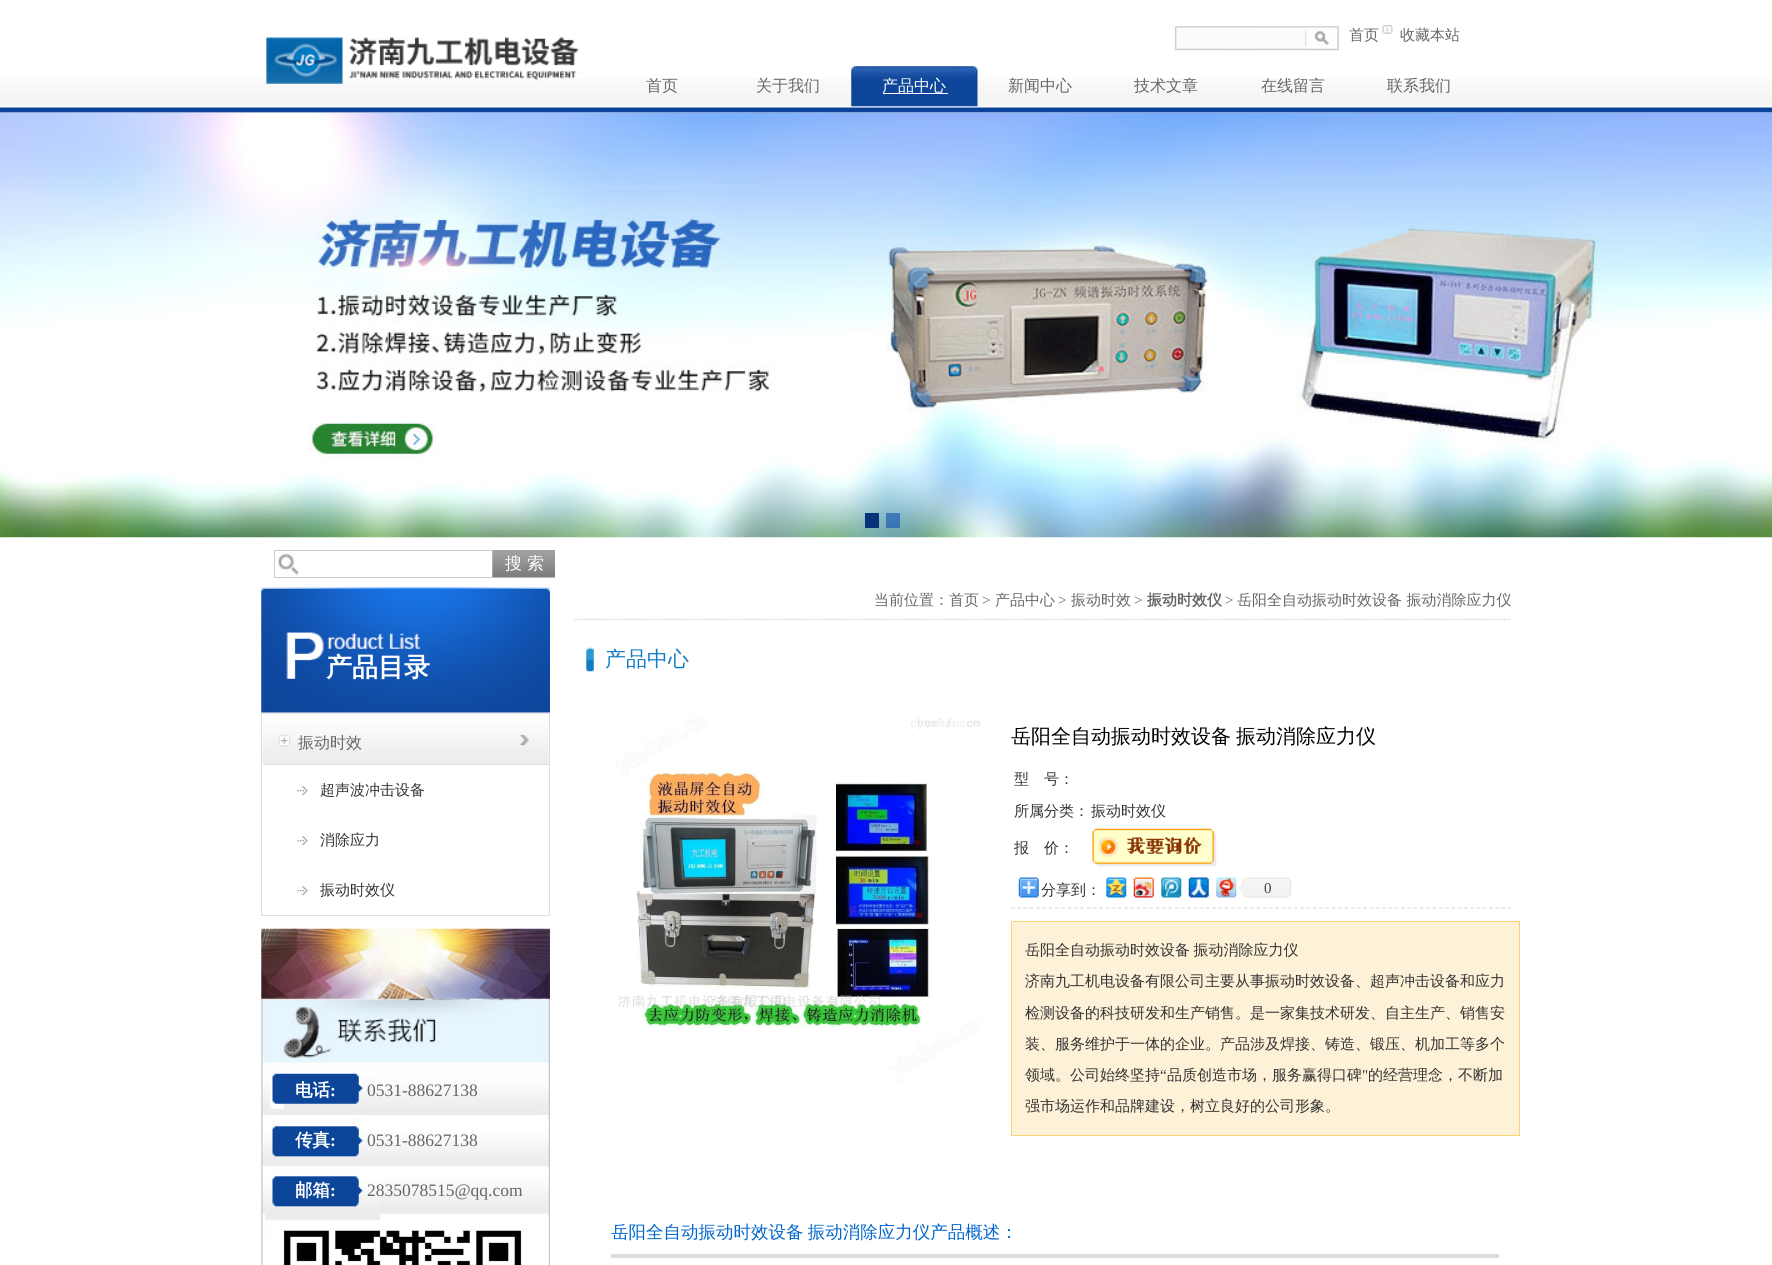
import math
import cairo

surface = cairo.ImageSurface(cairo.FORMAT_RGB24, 1772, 1265)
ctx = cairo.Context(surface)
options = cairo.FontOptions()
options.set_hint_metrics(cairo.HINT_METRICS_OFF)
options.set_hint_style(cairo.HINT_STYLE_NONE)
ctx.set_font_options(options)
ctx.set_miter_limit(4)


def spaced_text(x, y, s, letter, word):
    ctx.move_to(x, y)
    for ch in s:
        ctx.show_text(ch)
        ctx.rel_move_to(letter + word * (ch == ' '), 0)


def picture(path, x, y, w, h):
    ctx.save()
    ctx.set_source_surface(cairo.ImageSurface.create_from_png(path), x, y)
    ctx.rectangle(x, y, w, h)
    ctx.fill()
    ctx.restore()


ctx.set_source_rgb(1, 1, 1)
ctx.paint()
picture("img1.png", 0, 79, 1772, 34)
picture("img2.png", 266, 37, 313, 47)
picture("img3.png", 1174, 25, 167, 26)
ctx.select_font_face("WenQuanYi Zen Hei Medium")
ctx.set_font_size(15)
ctx.set_source_rgb(0.4, 0.4, 0.4)
ctx.move_to(1349, 40)
ctx.show_text("首页")
picture("img4.png", 1382, 25, 11, 9)
ctx.move_to(1400, 40)
ctx.show_text("收藏本站")
ctx.set_font_size(16)
ctx.move_to(646, 91)
ctx.show_text("首页")
ctx.move_to(756, 91)
ctx.show_text("关于我们")
picture("img5.png", 851, 66, 127, 41)
ctx.set_source_rgb(1, 1, 1)
ctx.move_to(882, 91)
ctx.show_text("产品中心")
ctx.rectangle(883, 93, 65, 1)
ctx.fill()
ctx.set_source_rgb(0.4, 0.4, 0.4)
ctx.move_to(1008, 91)
ctx.show_text("新闻中心")
ctx.move_to(1134, 91)
ctx.show_text("技术文章")
ctx.move_to(1261, 91)
ctx.show_text("在线留言")
ctx.move_to(1387, 91)
ctx.show_text("联系我们")
picture("img6.png", 0, 112, 1772, 426)
ctx.set_source_rgb(0.024, 0.2, 0.467)
ctx.rectangle(865, 513, 14, 15)
ctx.fill()
ctx.set_source_rgba(0.059, 0.306, 0.686, 0.6)
ctx.rectangle(886, 513, 14, 15)
ctx.fill()
picture("img7.png", 278, 551, 21, 26)
ctx.rectangle(274.5, 550.5, 218, 27)
ctx.set_source_rgb(0.8, 0.8, 0.8)
ctx.set_line_width(1)
ctx.stroke()
picture("img8.png", 492, 550, 63, 28)
ctx.set_font_size(17)
ctx.set_source_rgb(1, 1, 1)
ctx.move_to(505, 569)
ctx.show_text("搜 索")
picture("img9.png", 261, 587, 289, 126)
ctx.select_font_face("WenQuanYi Zen Hei", cairo.FONT_SLANT_NORMAL, cairo.FONT_WEIGHT_BOLD)
ctx.set_font_size(26)
ctx.move_to(326, 676)
ctx.show_text("产品目录")
ctx.rectangle(261.5, 713.5, 288, 202)
ctx.set_source_rgb(0.871, 0.871, 0.871)
ctx.stroke()
picture("img10.png", 262, 713, 287, 51)
ctx.rectangle(263, 764, 286, 1)
ctx.fill()
ctx.select_font_face("WenQuanYi Zen Hei Medium")
ctx.set_font_size(16)
ctx.set_source_rgb(0.4, 0.4, 0.4)
ctx.move_to(298, 748)
ctx.show_text("振动时效")
picture("img11.png", 297, 786, 11, 9)
ctx.set_font_size(15)
ctx.set_source_rgb(0.2, 0.2, 0.2)
ctx.move_to(320, 795)
ctx.show_text("超声波冲击设备")
picture("img11.png", 297, 836, 11, 9)
ctx.move_to(320, 845)
ctx.show_text("消除应力")
picture("img11.png", 297, 886, 11, 9)
ctx.move_to(320, 895)
ctx.show_text("振动时效仪")
picture("img12.png", 261, 928, 289, 337)
ctx.select_font_face("WenQuanYi Zen Hei", cairo.FONT_SLANT_NORMAL, cairo.FONT_WEIGHT_BOLD)
ctx.set_font_size(17.5)
ctx.set_source_rgb(1, 1, 1)
ctx.move_to(295, 1096)
ctx.show_text("电话")
ctx.select_font_face("Liberation Serif", cairo.FONT_SLANT_NORMAL, cairo.FONT_WEIGHT_BOLD)
ctx.move_to(330, 1096)
ctx.show_text(":")
ctx.select_font_face("Liberation Serif")
ctx.set_source_rgb(0.4, 0.4, 0.4)
ctx.move_to(367, 1096)
ctx.show_text("0531-88627138")
ctx.select_font_face("WenQuanYi Zen Hei", cairo.FONT_SLANT_NORMAL, cairo.FONT_WEIGHT_BOLD)
ctx.set_source_rgb(1, 1, 1)
ctx.move_to(295, 1146)
ctx.show_text("传真")
ctx.select_font_face("Liberation Serif", cairo.FONT_SLANT_NORMAL, cairo.FONT_WEIGHT_BOLD)
ctx.move_to(330, 1146)
ctx.show_text(":")
ctx.select_font_face("Liberation Serif")
ctx.set_source_rgb(0.4, 0.4, 0.4)
ctx.move_to(367, 1146)
ctx.show_text("0531-88627138")
ctx.select_font_face("WenQuanYi Zen Hei", cairo.FONT_SLANT_NORMAL, cairo.FONT_WEIGHT_BOLD)
ctx.set_source_rgb(1, 1, 1)
ctx.move_to(295, 1196)
ctx.show_text("邮箱")
ctx.select_font_face("Liberation Serif", cairo.FONT_SLANT_NORMAL, cairo.FONT_WEIGHT_BOLD)
ctx.move_to(330, 1196)
ctx.show_text(":")
ctx.select_font_face("Liberation Serif")
ctx.set_source_rgb(0.4, 0.4, 0.4)
ctx.move_to(367, 1196)
ctx.show_text("2835078515@qq.com")
picture("img13.png", 283, 1229, 239, 36)
ctx.new_path()
ctx.move_to(574, 619.5)
ctx.line_to(1511, 619.5)
ctx.set_source_rgb(0.8, 0.8, 0.8)
ctx.set_line_width(1.2)
ctx.set_dash([1.25, 1.25])
ctx.stroke()
ctx.select_font_face("WenQuanYi Zen Hei Medium")
ctx.set_font_size(15)
ctx.set_source_rgb(0.4, 0.4, 0.4)
ctx.move_to(874, 605)
ctx.show_text("当前位置：首页")
ctx.select_font_face("Liberation Serif")
ctx.move_to(982, 605)
ctx.show_text(">")
ctx.select_font_face("WenQuanYi Zen Hei Medium")
ctx.move_to(995, 605)
ctx.show_text("产品中心")
ctx.select_font_face("Liberation Serif")
ctx.move_to(1058, 605)
ctx.show_text(">")
ctx.select_font_face("WenQuanYi Zen Hei Medium")
ctx.move_to(1071, 605)
ctx.show_text("振动时效")
ctx.select_font_face("Liberation Serif")
ctx.move_to(1134, 605)
ctx.show_text(">")
ctx.select_font_face("WenQuanYi Zen Hei", cairo.FONT_SLANT_NORMAL, cairo.FONT_WEIGHT_BOLD)
ctx.move_to(1147, 605)
ctx.show_text("振动时效仪")
ctx.select_font_face("Liberation Serif")
ctx.move_to(1225, 605)
ctx.show_text(">")
ctx.select_font_face("WenQuanYi Zen Hei Medium")
ctx.move_to(1237, 605)
ctx.show_text("岳阳全自动振动时效设备 振动消除应力仪")
picture("img14.png", 586, 647, 8, 25)
ctx.set_font_size(21)
ctx.set_source_rgb(0.059, 0.482, 0.769)
ctx.move_to(605, 666)
ctx.show_text("产品中心")
picture("img15.png", 615, 715, 367, 367)
ctx.set_font_size(20)
ctx.set_source_rgb(0, 0, 0)
spaced_text(1011, 743, "岳阳全自动振动时效设备 振动消除应力仪", 0, -1)
ctx.set_font_size(15)
ctx.set_source_rgb(0.2, 0.2, 0.2)
ctx.move_to(1014, 784)
ctx.show_text("型")
ctx.move_to(1044, 784)
ctx.show_text("号：")
ctx.move_to(1014, 816)
ctx.show_text("所属分类：")
ctx.move_to(1091, 816)
ctx.show_text("振动时效仪")
ctx.move_to(1014, 853)
ctx.show_text("报")
ctx.move_to(1044, 853)
ctx.show_text("价：")
picture("img16.png", 1092, 828, 125, 39)
ctx.new_path()
ctx.move_to(1011, 908)
ctx.line_to(1511, 908)
ctx.set_source_rgb(0.867, 0.867, 0.867)
ctx.set_dash([3.75, 2.54])
ctx.stroke()
picture("img17.png", 1018, 877, 21, 21)
ctx.set_source_rgb(0.2, 0.2, 0.2)
ctx.move_to(1041, 895)
ctx.show_text("分享到：")
picture("img18.png", 1106, 877, 21, 21)
picture("img19.png", 1133, 877, 21, 21)
picture("img20.png", 1161, 877, 21, 21)
picture("img21.png", 1188, 877, 21, 21)
picture("img22.png", 1216, 877, 21, 21)
picture("img23.png", 1238, 877, 54, 21)
ctx.select_font_face("Liberation Serif")
ctx.set_source_rgb(0.271, 0.271, 0.271)
ctx.move_to(1264, 893)
ctx.show_text("0")
ctx.set_source_rgb(0.992, 0.945, 0.843)
ctx.rectangle(1011.5, 921.5, 508, 214)
ctx.fill_preserve()
ctx.set_source_rgb(0.992, 0.824, 0.455)
ctx.set_line_width(1)
ctx.set_dash([])
ctx.stroke()
ctx.select_font_face("WenQuanYi Zen Hei Medium")
ctx.set_source_rgb(0.2, 0.2, 0.2)
spaced_text(1025, 955, "岳阳全自动振动时效设备 振动消除应力仪", 0, -1)
ctx.move_to(1025, 986)
ctx.show_text("济南九工机电设备有限公司主要从事振动时效设备、超声冲击设备和应力")
ctx.move_to(1025, 1018)
ctx.show_text("检测设备的科技研发和生产销售。是一家集技术研发、自主生产、销售安")
ctx.move_to(1025, 1049)
ctx.show_text("装、服务维护于一体的企业。产品涉及焊接、铸造、锻压、机加工等多个")
ctx.move_to(1025, 1080)
ctx.show_text("领域。公司始终坚持")
ctx.select_font_face("Liberation Serif")
ctx.move_to(1160, 1080)
ctx.show_text("“")
ctx.select_font_face("WenQuanYi Zen Hei Medium")
ctx.move_to(1167, 1080)
ctx.show_text("品质创造市场，服务赢得口碑")
ctx.select_font_face("Liberation Serif")
ctx.move_to(1362, 1080)
ctx.show_text("\"")
ctx.select_font_face("WenQuanYi Zen Hei Medium")
ctx.move_to(1368, 1080)
ctx.show_text("的经营理念，不断加")
ctx.move_to(1025, 1111)
ctx.show_text("强市场运作和品牌建设，树立良好的公司形象。")
ctx.set_source_rgb(0.867, 0.867, 0.867)
ctx.rectangle(611, 1254, 888, 4)
ctx.fill()
ctx.set_font_size(17.5)
ctx.set_source_rgb(0, 0.4, 0.8)
spaced_text(611, 1238, "岳阳全自动振动时效设备 振动消除应力仪产品概述：", 0, -1)
surface.write_to_png("page.png")
